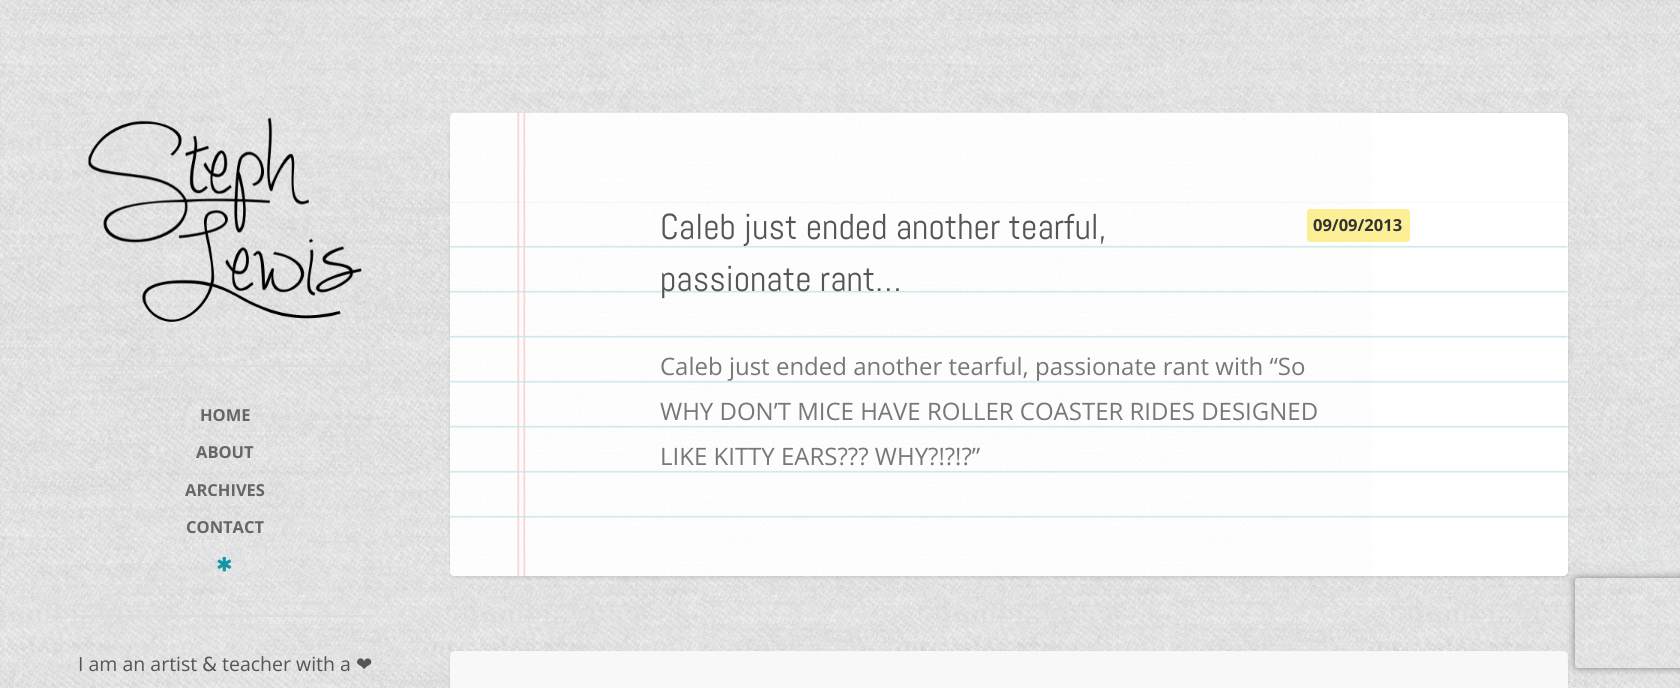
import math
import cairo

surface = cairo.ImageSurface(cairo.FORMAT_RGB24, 1680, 688)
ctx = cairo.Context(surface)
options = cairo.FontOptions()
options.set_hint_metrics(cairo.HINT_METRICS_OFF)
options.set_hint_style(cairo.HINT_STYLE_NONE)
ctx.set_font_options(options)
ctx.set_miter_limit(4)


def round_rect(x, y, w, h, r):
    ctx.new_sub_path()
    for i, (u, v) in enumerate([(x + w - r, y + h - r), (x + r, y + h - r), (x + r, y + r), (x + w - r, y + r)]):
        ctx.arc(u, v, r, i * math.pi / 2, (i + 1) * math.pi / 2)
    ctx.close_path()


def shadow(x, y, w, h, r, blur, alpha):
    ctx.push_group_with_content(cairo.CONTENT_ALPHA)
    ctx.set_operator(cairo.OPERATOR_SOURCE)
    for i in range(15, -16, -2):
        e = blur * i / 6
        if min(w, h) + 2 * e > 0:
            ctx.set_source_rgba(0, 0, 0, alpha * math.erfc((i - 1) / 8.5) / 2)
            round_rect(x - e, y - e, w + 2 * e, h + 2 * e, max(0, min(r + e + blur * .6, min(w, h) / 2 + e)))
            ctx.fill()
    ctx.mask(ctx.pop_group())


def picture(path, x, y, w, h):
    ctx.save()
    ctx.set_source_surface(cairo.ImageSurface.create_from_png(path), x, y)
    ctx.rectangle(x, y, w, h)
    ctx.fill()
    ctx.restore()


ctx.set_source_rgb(1, 1, 1)
ctx.paint()
picture("img1.png", 0, 0, 1680, 688)
ctx.set_source_rgb(0, 0, 0)
shadow(450, 114, 1118, 464, 5, 1.5, 0.1)
ctx.set_source_rgb(1, 1, 1)
round_rect(450, 113, 1118, 463, 5)
ctx.fill()
picture("img2.png", 450, 112, 922, 464)
picture("img3.png", 450, 202, 1118, 316)
ctx.select_font_face("Abel")
ctx.set_font_size(36)
ctx.set_source_rgb(0.333, 0.333, 0.333)
ctx.move_to(660, 239)
ctx.show_text("Caleb just ended another tearful,")
ctx.move_to(660, 291)
ctx.show_text("passionate rant…")
ctx.set_source_rgba(0.988, 0.91, 0.416, 0.7)
round_rect(1307, 209, 103, 33, 3)
ctx.fill()
ctx.select_font_face("Open Sans", cairo.FONT_SLANT_NORMAL, cairo.FONT_WEIGHT_BOLD)
ctx.set_font_size(16.5)
ctx.set_source_rgb(0.2, 0.2, 0.2)
ctx.move_to(1313, 231)
ctx.show_text("09/09/2013")
ctx.select_font_face("Open Sans")
ctx.set_font_size(24)
ctx.set_source_rgb(0.467, 0.467, 0.467)
ctx.move_to(660, 375)
ctx.show_text("Caleb just ended another tearful, passionate rant with “So")
ctx.move_to(660, 420)
ctx.show_text("WHY DON’T MICE HAVE ROLLER COASTER RIDES DESIGNED")
ctx.move_to(660, 465)
ctx.show_text("LIKE KITTY EARS??? WHY?!?!?”")
ctx.set_source_rgb(0, 0, 0)
shadow(450, 653, 1118, 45, 5, 1.5, 0.1)
ctx.set_source_rgb(0.969, 0.969, 0.969)
ctx.new_path()
ctx.move_to(455, 651)
ctx.line_to(1563, 651)
ctx.curve_to(1566, 651, 1568, 653, 1568, 656)
ctx.line_to(1568, 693)
ctx.line_to(450, 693)
ctx.line_to(450, 656)
ctx.curve_to(450, 653, 452, 651, 455, 651)
ctx.close_path()
ctx.fill()
picture("img4.png", 88, 117, 274, 205)
ctx.set_source_rgb(0.867, 0.867, 0.867)
ctx.rectangle(75, 365, 300, 2)
ctx.fill()
ctx.rectangle(75, 615, 300, 2)
ctx.fill()
ctx.select_font_face("Open Sans", cairo.FONT_SLANT_NORMAL, cairo.FONT_WEIGHT_BOLD)
ctx.set_font_size(16.5)
ctx.set_source_rgb(0.4, 0.4, 0.4)
ctx.move_to(200, 421)
ctx.show_text("HOME")
ctx.move_to(196, 458)
ctx.show_text("ABOUT")
ctx.move_to(185, 496)
ctx.show_text("ARCHIVES")
ctx.move_to(186, 533)
ctx.show_text("CONTACT")
picture("img5.png", 217, 556, 14, 16)
ctx.select_font_face("Open Sans")
ctx.set_font_size(19.5)
ctx.set_source_rgb(0.333, 0.333, 0.333)
ctx.move_to(78, 671)
ctx.show_text("I am an artist")
ctx.select_font_face("DejaVu Sans")
ctx.move_to(202, 671)
ctx.show_text("&")
ctx.select_font_face("Open Sans")
ctx.move_to(222, 671)
ctx.show_text("teacher with a")
ctx.select_font_face("DejaVu Sans")
ctx.move_to(356, 671)
ctx.show_text("❤")
ctx.save()
ctx.set_fill_rule(cairo.FILL_RULE_EVEN_ODD)
ctx.new_path()
ctx.move_to(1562, 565)
ctx.line_to(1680, 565)
ctx.line_to(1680, 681)
ctx.line_to(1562, 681)
ctx.close_path()
ctx.move_to(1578, 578)
ctx.line_to(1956, 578)
ctx.curve_to(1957.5, 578, 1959, 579.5, 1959, 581)
ctx.line_to(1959, 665)
ctx.curve_to(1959, 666.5, 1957.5, 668, 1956, 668)
ctx.line_to(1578, 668)
ctx.curve_to(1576.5, 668, 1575, 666.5, 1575, 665)
ctx.line_to(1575, 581)
ctx.curve_to(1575, 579.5, 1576.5, 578, 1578, 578)
ctx.close_path()
ctx.clip()
ctx.set_source_rgb(0.502, 0.502, 0.502)
shadow(1575, 578, 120, 90, 3, 4, 1)
ctx.restore()
surface.write_to_png("page.png")
